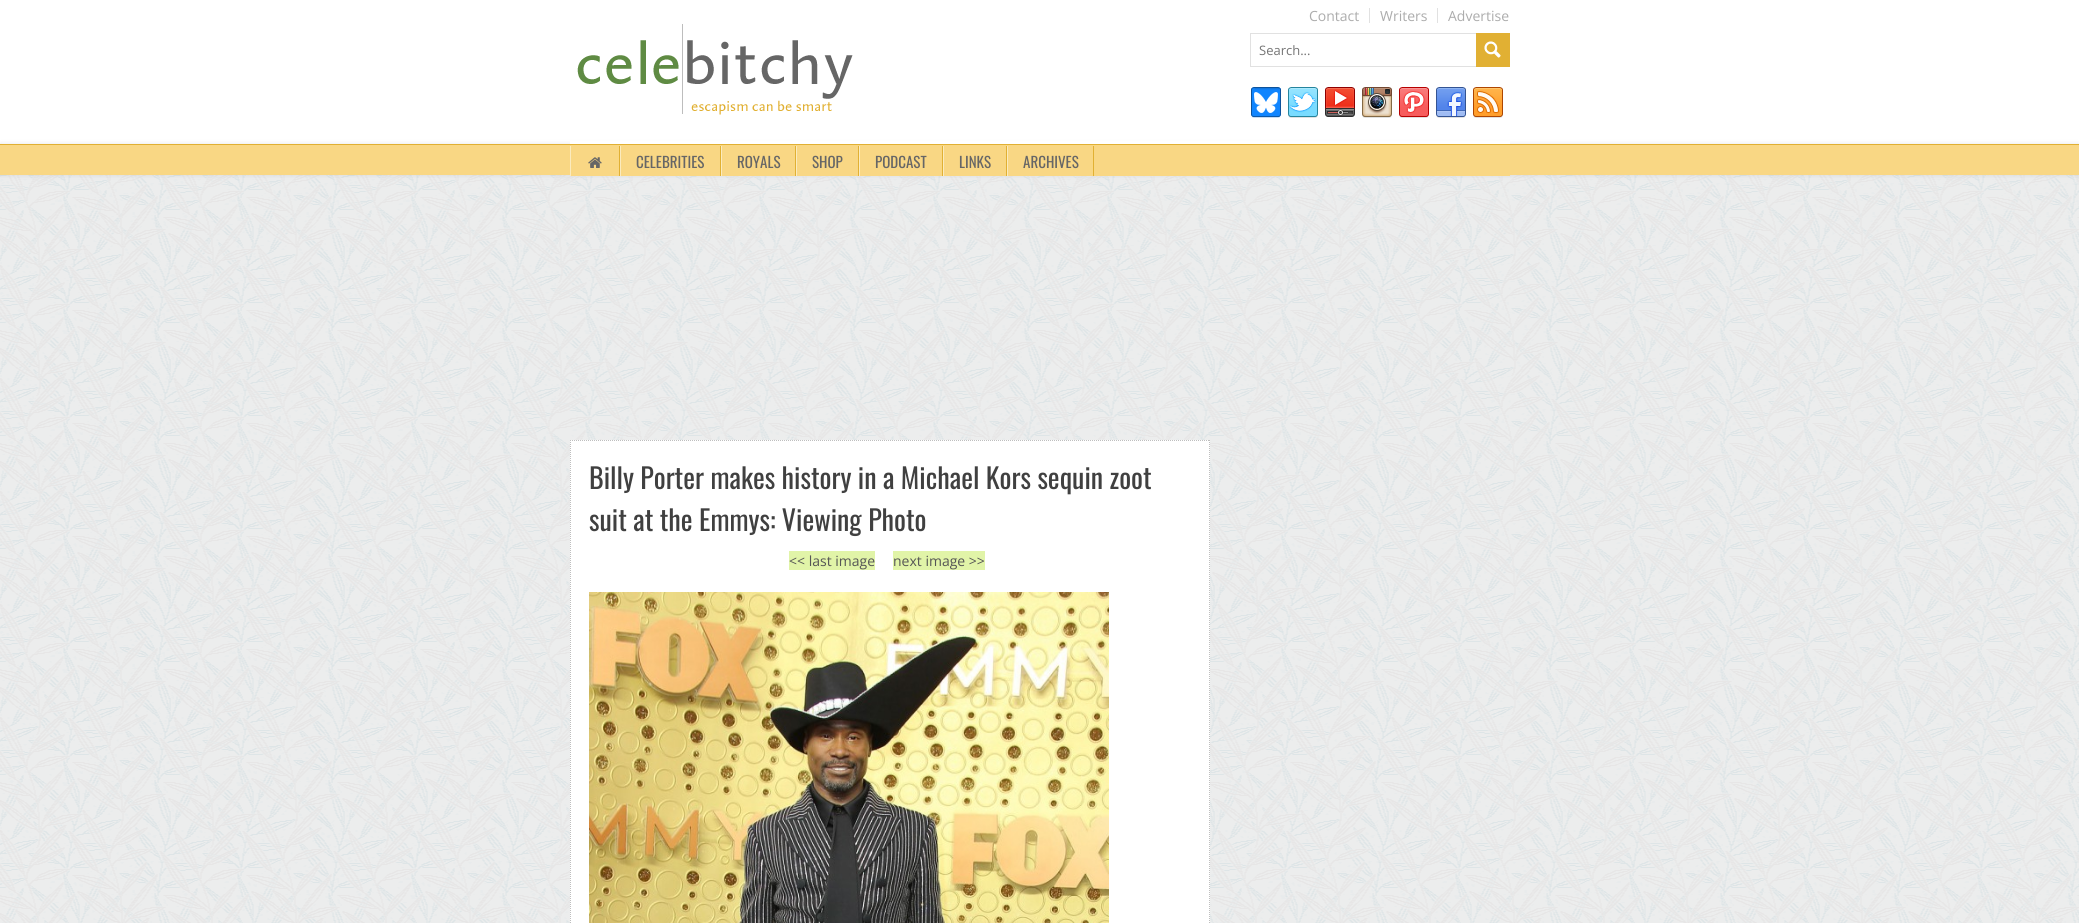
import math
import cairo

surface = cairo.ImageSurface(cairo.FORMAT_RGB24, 2079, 923)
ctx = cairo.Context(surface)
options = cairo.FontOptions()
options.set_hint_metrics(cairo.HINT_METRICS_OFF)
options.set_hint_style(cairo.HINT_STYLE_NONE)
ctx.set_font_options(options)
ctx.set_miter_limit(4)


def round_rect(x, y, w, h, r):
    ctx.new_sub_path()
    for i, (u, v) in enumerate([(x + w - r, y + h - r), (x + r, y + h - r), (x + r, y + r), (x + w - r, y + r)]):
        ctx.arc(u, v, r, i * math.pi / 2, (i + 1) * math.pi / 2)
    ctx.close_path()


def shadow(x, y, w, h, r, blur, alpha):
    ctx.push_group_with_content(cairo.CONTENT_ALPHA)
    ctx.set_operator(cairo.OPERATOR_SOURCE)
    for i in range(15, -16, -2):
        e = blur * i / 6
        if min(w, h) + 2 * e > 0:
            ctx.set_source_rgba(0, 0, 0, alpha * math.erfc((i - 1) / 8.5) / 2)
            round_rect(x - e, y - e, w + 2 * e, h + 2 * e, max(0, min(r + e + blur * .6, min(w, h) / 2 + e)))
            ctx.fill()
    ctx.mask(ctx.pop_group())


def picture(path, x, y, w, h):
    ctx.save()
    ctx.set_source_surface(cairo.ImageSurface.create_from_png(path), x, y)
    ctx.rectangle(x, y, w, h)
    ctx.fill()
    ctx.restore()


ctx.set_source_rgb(1, 1, 1)
ctx.paint()
picture("img1.png", 0, 175, 2079, 748)
ctx.set_source_rgb(0, 0, 0)
shadow(0, 144, 2079, 31, 0, 2.5, 0.1)
ctx.set_source_rgb(1, 1, 1)
ctx.rectangle(570, 141, 940, 3)
ctx.fill()
ctx.set_source_rgb(0.882, 0.882, 0.882)
ctx.rectangle(1369, 8, 1, 15)
ctx.fill()
ctx.select_font_face("Open Sans")
ctx.set_font_size(14)
ctx.set_source_rgb(0.675, 0.675, 0.675)
ctx.move_to(1309, 21)
ctx.show_text("Contact")
ctx.set_source_rgb(0.882, 0.882, 0.882)
ctx.rectangle(1437, 8, 1, 15)
ctx.fill()
ctx.set_source_rgb(0.675, 0.675, 0.675)
ctx.move_to(1380, 21)
ctx.show_text("Writers")
ctx.move_to(1448, 21)
ctx.show_text("Advertise")
picture("img2.png", 577, 24, 276, 91)
ctx.rectangle(1250.5, 33.5, 259, 33)
ctx.set_source_rgb(0.882, 0.882, 0.882)
ctx.set_line_width(1)
ctx.stroke()
ctx.set_font_size(13)
ctx.set_source_rgb(0.459, 0.459, 0.459)
ctx.move_to(1259, 55)
ctx.show_text("Search...")
ctx.set_source_rgb(0.882, 0.69, 0.2)
ctx.rectangle(1476, 33, 34, 34)
ctx.fill()
picture("img3.png", 1484, 41, 17, 17)
picture("img4.png", 1251, 87, 30, 31)
picture("img5.png", 1288, 87, 30, 31)
picture("img6.png", 1325, 87, 30, 30)
picture("img7.png", 1362, 87, 30, 31)
picture("img8.png", 1399, 87, 30, 31)
picture("img9.png", 1436, 87, 30, 31)
picture("img10.png", 1473, 87, 30, 31)
ctx.set_source_rgb(0.973, 0.843, 0.518)
ctx.rectangle(0, 145, 2079, 30)
ctx.fill()
ctx.set_source_rgb(0.882, 0.69, 0.2)
ctx.rectangle(0, 144, 2079, 1)
ctx.fill()
ctx.set_source_rgb(0.973, 0.843, 0.518)
ctx.rectangle(570, 175, 940, 1)
ctx.fill()
ctx.set_source_rgb(0.882, 0.69, 0.2)
ctx.rectangle(619, 146, 1, 30)
ctx.fill()
ctx.set_source_rgb(0.984, 0.918, 0.745)
ctx.rectangle(570, 146, 1, 30)
ctx.fill()
picture("img11.png", 588, 157, 14, 11)
ctx.set_source_rgb(0.882, 0.69, 0.2)
ctx.rectangle(720, 146, 1, 30)
ctx.fill()
ctx.set_source_rgb(0.984, 0.918, 0.745)
ctx.rectangle(620, 146, 1, 30)
ctx.fill()
ctx.select_font_face("Oswald")
ctx.set_font_size(15)
ctx.set_source_rgb(0.4, 0.4, 0.4)
ctx.move_to(636, 168)
ctx.show_text("CELEBRITIES")
ctx.set_source_rgb(0.882, 0.69, 0.2)
ctx.rectangle(795, 146, 1, 30)
ctx.fill()
ctx.set_source_rgb(0.984, 0.918, 0.745)
ctx.rectangle(721, 146, 1, 30)
ctx.fill()
ctx.set_source_rgb(0.4, 0.4, 0.4)
ctx.move_to(737, 168)
ctx.show_text("ROYALS")
ctx.set_source_rgb(0.882, 0.69, 0.2)
ctx.rectangle(858, 146, 1, 30)
ctx.fill()
ctx.set_source_rgb(0.984, 0.918, 0.745)
ctx.rectangle(796, 146, 1, 30)
ctx.fill()
ctx.set_source_rgb(0.4, 0.4, 0.4)
ctx.move_to(812, 168)
ctx.show_text("SHOP")
ctx.set_source_rgb(0.882, 0.69, 0.2)
ctx.rectangle(942, 146, 1, 30)
ctx.fill()
ctx.set_source_rgb(0.984, 0.918, 0.745)
ctx.rectangle(859, 146, 1, 30)
ctx.fill()
ctx.set_source_rgb(0.4, 0.4, 0.4)
ctx.move_to(875, 168)
ctx.show_text("PODCAST")
ctx.set_source_rgb(0.882, 0.69, 0.2)
ctx.rectangle(1006, 146, 1, 30)
ctx.fill()
ctx.set_source_rgb(0.984, 0.918, 0.745)
ctx.rectangle(943, 146, 1, 30)
ctx.fill()
ctx.set_source_rgb(0.4, 0.4, 0.4)
ctx.move_to(959, 168)
ctx.show_text("LINKS")
ctx.set_source_rgb(0.882, 0.69, 0.2)
ctx.rectangle(1093, 146, 1, 30)
ctx.fill()
ctx.set_source_rgb(0.984, 0.918, 0.745)
ctx.rectangle(1007, 146, 1, 30)
ctx.fill()
ctx.set_source_rgb(0.4, 0.4, 0.4)
ctx.move_to(1023, 168)
ctx.show_text("ARCHIVES")
ctx.set_source_rgb(1, 1, 1)
ctx.rectangle(570, 440, 640, 483)
ctx.fill()
ctx.new_path()
ctx.move_to(570, 440.5)
ctx.line_to(1210, 440.5)
ctx.set_source_rgb(0.745, 0.745, 0.745)
ctx.set_dash([1, 1])
ctx.stroke()
ctx.new_path()
ctx.move_to(1209.5, 440)
ctx.line_to(1209.5, 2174)
ctx.stroke()
ctx.new_path()
ctx.move_to(570.5, 440)
ctx.line_to(570.5, 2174)
ctx.stroke()
ctx.set_font_size(28)
ctx.set_source_rgb(0.251, 0.251, 0.251)
ctx.move_to(589, 489)
ctx.show_text("Billy Porter makes history in a Michael Kors sequin zoot")
ctx.move_to(589, 531)
ctx.show_text("suit at the Emmys: Viewing Photo")
ctx.set_source_rgb(0.882, 0.957, 0.659)
ctx.rectangle(789, 551, 86, 19)
ctx.fill()
ctx.select_font_face("Open Sans")
ctx.set_font_size(14)
ctx.set_source_rgb(0.333, 0.333, 0.333)
ctx.move_to(789, 566)
ctx.show_text("<< last image")
ctx.set_source_rgb(0.882, 0.957, 0.659)
ctx.rectangle(893, 551, 92, 19)
ctx.fill()
ctx.set_source_rgb(0.333, 0.333, 0.333)
ctx.move_to(893, 566)
ctx.show_text("next image >>")
picture("img12.png", 589, 592, 520, 331)
surface.write_to_png("page.png")
